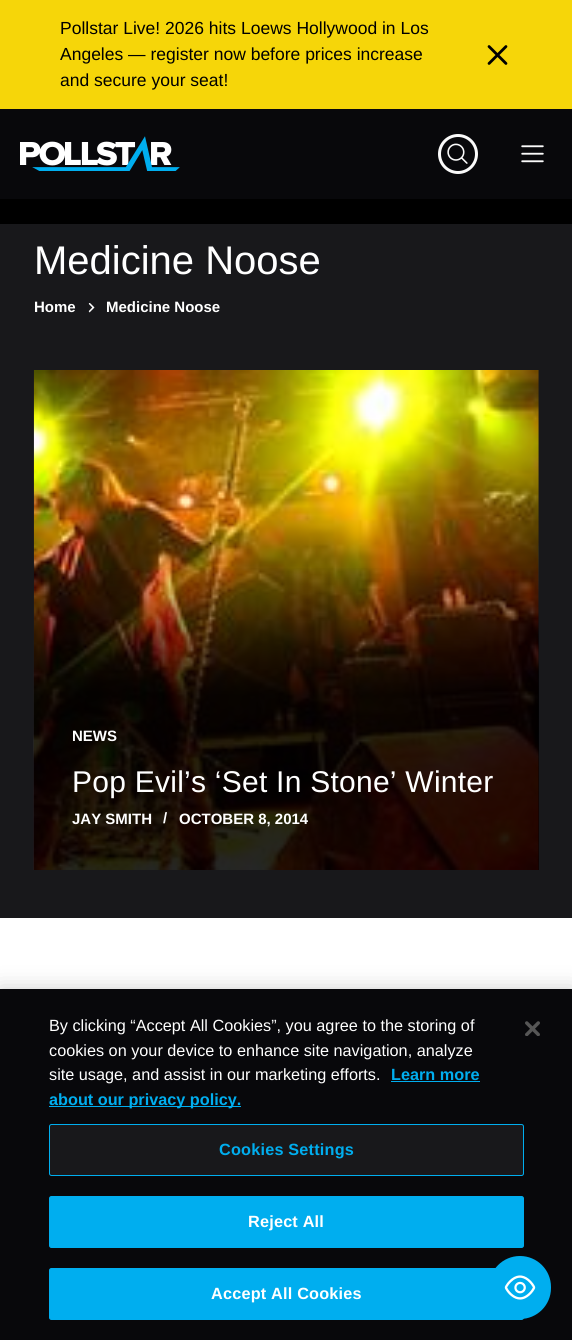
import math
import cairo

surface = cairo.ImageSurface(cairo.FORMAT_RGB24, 572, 1340)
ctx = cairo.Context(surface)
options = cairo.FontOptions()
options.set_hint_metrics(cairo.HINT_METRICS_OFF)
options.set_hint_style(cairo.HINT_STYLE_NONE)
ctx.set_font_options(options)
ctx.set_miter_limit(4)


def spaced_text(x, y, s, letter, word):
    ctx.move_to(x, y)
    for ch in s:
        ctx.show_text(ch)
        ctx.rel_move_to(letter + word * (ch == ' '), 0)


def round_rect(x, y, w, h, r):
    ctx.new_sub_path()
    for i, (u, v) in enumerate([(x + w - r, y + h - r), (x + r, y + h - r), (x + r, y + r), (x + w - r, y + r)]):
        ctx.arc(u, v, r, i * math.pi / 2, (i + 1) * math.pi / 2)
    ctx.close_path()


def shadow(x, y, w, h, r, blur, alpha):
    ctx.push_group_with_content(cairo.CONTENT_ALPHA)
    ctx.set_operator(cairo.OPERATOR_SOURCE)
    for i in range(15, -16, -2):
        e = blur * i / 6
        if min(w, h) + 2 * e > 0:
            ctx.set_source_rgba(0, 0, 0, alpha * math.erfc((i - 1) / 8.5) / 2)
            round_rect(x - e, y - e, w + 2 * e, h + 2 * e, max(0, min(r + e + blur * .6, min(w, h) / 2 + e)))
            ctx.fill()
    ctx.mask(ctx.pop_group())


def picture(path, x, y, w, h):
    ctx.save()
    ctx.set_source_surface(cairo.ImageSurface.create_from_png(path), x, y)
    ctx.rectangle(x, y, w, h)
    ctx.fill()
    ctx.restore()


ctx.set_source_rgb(0.094, 0.094, 0.106)
ctx.paint()
ctx.set_source_rgb(0, 0, 0)
ctx.rectangle(0, 199, 572, 25)
ctx.fill()
ctx.set_source_rgb(0.961, 0.839, 0.039)
ctx.rectangle(0, 0, 572, 109)
ctx.fill()
ctx.select_font_face("Liberation Sans")
ctx.set_font_size(17.5)
ctx.set_source_rgb(0, 0, 0)
ctx.move_to(60, 34)
ctx.show_text("Pollstar Live! 2026 hits Loews Hollywood in Los")
ctx.move_to(60, 60)
ctx.show_text("Angeles — register now before prices increase")
ctx.move_to(60, 86)
ctx.show_text("and secure your seat!")
picture("img1.png", 487, 45, 21, 20)
ctx.set_source_rgb(0.035, 0.035, 0.043)
ctx.rectangle(0, 109, 572, 90)
ctx.fill()
picture("img2.png", 20, 136, 160, 35)
ctx.arc(458, 154, 18.5, 0, 2 * math.pi)
ctx.set_source_rgb(0.98, 0.98, 0.98)
ctx.set_line_width(3)
ctx.stroke()
picture("img3.png", 447, 143, 21, 21)
picture("img4.png", 521, 145, 23, 18)
ctx.set_font_size(40)
ctx.set_source_rgb(1, 1, 1)
ctx.move_to(34, 274)
ctx.show_text("Medicine Noose")
ctx.select_font_face("Liberation Sans", cairo.FONT_SLANT_NORMAL, cairo.FONT_WEIGHT_BOLD)
ctx.set_font_size(15)
ctx.move_to(34, 312)
ctx.show_text("Home")
picture("img5.png", 88, 303, 7, 10)
ctx.move_to(106, 312)
ctx.show_text("Medicine Noose")
ctx.save()
ctx.rectangle(34, 543, 505, 327)
ctx.clip()
ctx.set_source_rgb(0.075, 0.141, 0.18)
ctx.new_path()
ctx.move_to(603, 829)
ctx.line_to(538, 543)
ctx.line_to(360, 829)
ctx.line_to(-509, 829)
ctx.line_to(-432, 870)
ctx.line_to(396, 870)
ctx.line_to(517, 671)
ctx.line_to(558, 870)
ctx.line_to(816, 870)
ctx.line_to(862, 829)
ctx.close_path()
ctx.fill()
ctx.restore()
picture("img6.png", 33, 370, 506, 500)
gradient = cairo.LinearGradient(286, 870, 286, 370)
gradient.add_color_stop_rgba(0.35, 0, 0, 0, 0.85)
gradient.add_color_stop_rgba(0.61, 0, 0, 0, 0)
ctx.set_source(gradient)
ctx.rectangle(34, 568, 505, 302)
ctx.fill()
ctx.set_source_rgb(1, 1, 1)
ctx.move_to(72, 741)
ctx.show_text("NEWS")
ctx.select_font_face("Liberation Sans")
ctx.set_font_size(30)
spaced_text(72, 792, "Pop Evil’s ‘Set In Stone’ Winter", 0.25, 0)
ctx.select_font_face("Liberation Sans", cairo.FONT_SLANT_NORMAL, cairo.FONT_WEIGHT_BOLD)
ctx.set_font_size(15)
ctx.move_to(72, 824)
ctx.show_text("JAY SMITH")
ctx.move_to(163, 823)
ctx.show_text("/")
ctx.move_to(179, 824)
ctx.show_text("OCTOBER 8, 2014")
ctx.rectangle(0, 918, 572, 71)
ctx.fill()
ctx.arc(428.5, 997.5, 12.5, 0, 2 * math.pi)
ctx.fill()
ctx.set_source_rgb(0, 0, 0)
shadow(0, 989, 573, 351, 0, 11, 0.2)
ctx.set_source_rgb(0.035, 0.035, 0.043)
ctx.rectangle(0, 989, 572, 351)
ctx.fill()
ctx.select_font_face("Liberation Sans")
ctx.set_font_size(16.25)
ctx.set_source_rgb(1, 1, 1)
ctx.move_to(49, 1031)
ctx.show_text("By clicking “Accept All Cookies”, you agree to the storing of")
ctx.move_to(49, 1056)
ctx.show_text("cookies on your device to enhance site navigation, analyze")
ctx.move_to(49, 1080)
ctx.show_text("site usage, and assist in our marketing efforts.")
ctx.select_font_face("Liberation Sans", cairo.FONT_SLANT_NORMAL, cairo.FONT_WEIGHT_BOLD)
ctx.set_source_rgb(0, 0.682, 0.937)
ctx.move_to(391, 1080)
ctx.show_text("Learn more")
ctx.rectangle(391, 1081, 89, 1)
ctx.fill()
ctx.rectangle(49, 1106, 192, 1)
ctx.fill()
ctx.move_to(49, 1105)
ctx.show_text("about our privacy policy.")
ctx.set_source_rgb(0.094, 0.094, 0.106)
round_rect(49.5, 1124.5, 474, 51, 2)
ctx.fill_preserve()
ctx.set_source_rgb(0, 0.682, 0.937)
ctx.set_line_width(1)
ctx.stroke()
spaced_text(219, 1155, "Cookies Settings", 0.2, 0)
round_rect(49.5, 1196.5, 474, 51, 2)
ctx.fill_preserve()
ctx.stroke()
ctx.set_source_rgb(1, 1, 1)
spaced_text(248, 1227, "Reject All", 0.2, 0)
ctx.set_source_rgb(0, 0.682, 0.937)
round_rect(49.5, 1268.5, 474, 51, 2)
ctx.fill_preserve()
ctx.stroke()
ctx.set_source_rgb(1, 1, 1)
spaced_text(211, 1299, "Accept All Cookies", 0.2, 0)
picture("img7.png", 525, 1021, 15, 15)
ctx.set_source_rgb(0, 0.682, 0.937)
round_rect(489, 1256, 62, 63, 31)
ctx.fill()
picture("img8.png", 504, 1275, 32, 25)
surface.write_to_png("page.png")
